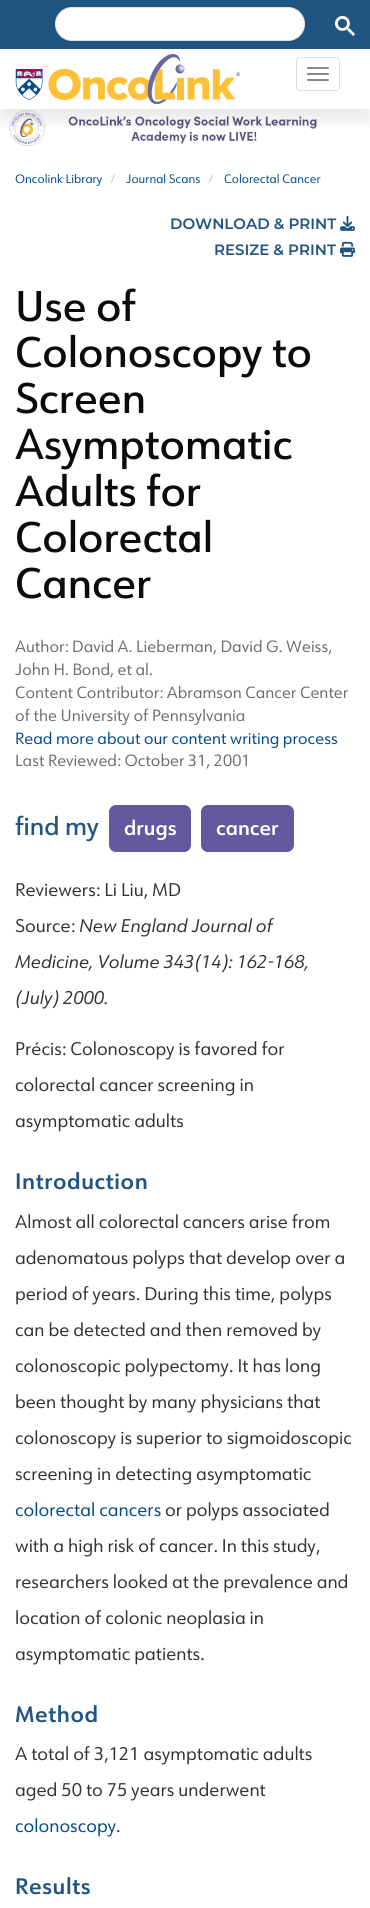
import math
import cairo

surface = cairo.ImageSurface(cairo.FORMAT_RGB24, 370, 1908)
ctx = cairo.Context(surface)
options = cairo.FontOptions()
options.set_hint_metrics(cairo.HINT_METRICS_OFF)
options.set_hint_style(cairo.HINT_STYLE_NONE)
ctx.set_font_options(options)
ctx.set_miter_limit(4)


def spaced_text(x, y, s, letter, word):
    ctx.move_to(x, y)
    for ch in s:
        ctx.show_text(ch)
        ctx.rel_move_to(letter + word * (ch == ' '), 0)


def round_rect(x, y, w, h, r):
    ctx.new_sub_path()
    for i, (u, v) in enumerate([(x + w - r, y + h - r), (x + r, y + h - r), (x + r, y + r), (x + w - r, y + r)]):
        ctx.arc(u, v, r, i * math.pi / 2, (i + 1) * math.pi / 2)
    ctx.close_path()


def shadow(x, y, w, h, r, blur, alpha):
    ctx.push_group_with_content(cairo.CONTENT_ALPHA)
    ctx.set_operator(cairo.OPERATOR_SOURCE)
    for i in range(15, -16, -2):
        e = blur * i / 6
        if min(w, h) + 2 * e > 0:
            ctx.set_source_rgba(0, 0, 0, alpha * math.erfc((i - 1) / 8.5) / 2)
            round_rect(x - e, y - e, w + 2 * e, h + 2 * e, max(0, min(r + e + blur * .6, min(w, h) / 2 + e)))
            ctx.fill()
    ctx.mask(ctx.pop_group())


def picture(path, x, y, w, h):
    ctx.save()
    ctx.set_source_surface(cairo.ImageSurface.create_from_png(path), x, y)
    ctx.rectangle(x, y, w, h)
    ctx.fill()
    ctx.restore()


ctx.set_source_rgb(1, 1, 1)
ctx.paint()
picture("img3.png", 9, 109, 309, 37)
ctx.save()
ctx.rectangle(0, 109, 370, 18)
ctx.clip()
ctx.set_source_rgb(0, 0, 0)
shadow(0, 59, 370, 60, 0, 10, 0.1)
ctx.restore()
ctx.set_source_rgb(0.125, 0.329, 0.506)
ctx.rectangle(0, 0, 370, 49)
ctx.fill()
ctx.set_source_rgb(1, 1, 1)
round_rect(55.5, 7.5, 249, 33, 16.5)
ctx.fill_preserve()
ctx.set_source_rgb(0.875, 0.882, 0.898)
ctx.set_line_width(1)
ctx.stroke()
picture("img1.png", 335, 16, 20, 20)
picture("img2.png", 15, 54, 225, 50)
round_rect(296.5, 57.5, 43, 33, 3.5)
ctx.set_source_rgb(0.867, 0.867, 0.867)
ctx.stroke()
ctx.set_source_rgb(0.533, 0.533, 0.533)
round_rect(307, 67, 22, 2, 1)
ctx.fill()
round_rect(307, 73, 22, 2, 1)
ctx.fill()
round_rect(307, 79, 22, 2, 1)
ctx.fill()
ctx.select_font_face("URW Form")
ctx.set_font_size(12)
ctx.set_source_rgb(0, 0.294, 0.553)
ctx.move_to(15, 183)
ctx.show_text("Oncolink Library")
ctx.set_source_rgb(0.8, 0.8, 0.8)
ctx.move_to(110, 183)
ctx.show_text("/")
ctx.set_source_rgb(0, 0.294, 0.553)
ctx.move_to(126, 183)
ctx.show_text("Journal Scans")
ctx.set_source_rgb(0.8, 0.8, 0.8)
ctx.move_to(208, 183)
ctx.show_text("/")
ctx.set_source_rgb(0, 0.294, 0.553)
ctx.move_to(224, 183)
ctx.show_text("Colorectal Cancer")
ctx.select_font_face("Montserrat SemiBold")
ctx.set_font_size(15)
ctx.set_source_rgb(0.125, 0.329, 0.506)
ctx.move_to(170, 229)
ctx.show_text("DOWNLOAD & PRINT")
picture("img4.png", 340, 215, 15, 16)
ctx.move_to(214, 255)
ctx.show_text("RESIZE & PRINT")
picture("img5.png", 340, 241, 15, 16)
ctx.select_font_face("URW Form Medium")
ctx.set_font_size(42)
ctx.set_source_rgb(0.043, 0.043, 0.043)
ctx.move_to(15, 321)
ctx.show_text("Use of")
ctx.move_to(15, 367)
ctx.show_text("Colonoscopy to")
ctx.move_to(15, 413)
ctx.show_text("Screen")
ctx.move_to(15, 459)
ctx.show_text("Asymptomatic")
ctx.move_to(15, 506)
ctx.show_text("Adults for")
ctx.move_to(15, 552)
ctx.show_text("Colorectal")
ctx.move_to(15, 598)
ctx.show_text("Cancer")
ctx.select_font_face("URW Form")
ctx.set_font_size(16)
ctx.set_source_rgb(0.424, 0.427, 0.427)
ctx.move_to(15, 652)
ctx.show_text("Author: David A. Lieberman, David G. Weiss,")
ctx.move_to(15, 675)
ctx.show_text("John H. Bond, et al.")
ctx.move_to(15, 698)
ctx.show_text("Content Contributor: Abramson Cancer Center")
ctx.move_to(15, 721)
ctx.show_text("of the University of Pennsylvania")
ctx.set_source_rgb(0, 0.294, 0.553)
ctx.move_to(15, 744)
ctx.show_text("Read more about our content writing process")
ctx.set_source_rgb(0.424, 0.427, 0.427)
ctx.move_to(15, 766)
ctx.show_text("Last Reviewed: October 31, 2001")
ctx.select_font_face("URW Form Medium")
ctx.set_font_size(25)
ctx.set_source_rgb(0.125, 0.329, 0.506)
ctx.move_to(15, 835)
ctx.show_text("find my")
ctx.set_source_rgb(0.388, 0.349, 0.624)
round_rect(109, 805, 82, 47, 7)
ctx.fill()
ctx.select_font_face("URW Form SemiBold")
ctx.set_font_size(20)
ctx.set_source_rgb(1, 1, 1)
ctx.move_to(124, 835)
ctx.show_text("drugs")
ctx.set_source_rgb(0.388, 0.349, 0.624)
round_rect(201, 805, 93, 47, 7)
ctx.fill()
ctx.set_source_rgb(1, 1, 1)
ctx.move_to(216, 835)
ctx.show_text("cancer")
ctx.select_font_face("URW Form")
ctx.set_font_size(18)
ctx.set_source_rgb(0.2, 0.2, 0.2)
ctx.move_to(15, 896)
ctx.show_text("Reviewers: Li Liu, MD")
ctx.move_to(15, 932)
ctx.show_text("Source:")
ctx.select_font_face("URW Form", cairo.FONT_SLANT_ITALIC)
ctx.move_to(79, 932)
ctx.show_text("New England Journal of")
ctx.move_to(15, 968)
ctx.show_text("Medicine, Volume 343(14): 162-168,")
ctx.move_to(15, 1004)
ctx.show_text("(July) 2000.")
ctx.select_font_face("URW Form")
ctx.move_to(15, 1055)
ctx.show_text("Précis: Colonoscopy is favored for")
ctx.move_to(15, 1091)
ctx.show_text("colorectal cancer screening in")
ctx.move_to(15, 1127)
ctx.show_text("asymptomatic adults")
ctx.select_font_face("URW Form SemiBold")
ctx.set_font_size(22)
ctx.set_source_rgb(0.125, 0.329, 0.506)
spaced_text(15, 1189, "Introduction", 0.6, 0)
ctx.select_font_face("URW Form")
ctx.set_font_size(18)
ctx.set_source_rgb(0.2, 0.2, 0.2)
ctx.move_to(15, 1228)
ctx.show_text("Almost all colorectal cancers arise from")
ctx.move_to(15, 1264)
ctx.show_text("adenomatous polyps that develop over a")
ctx.move_to(15, 1300)
ctx.show_text("period of years. During this time, polyps")
ctx.move_to(15, 1336)
ctx.show_text("can be detected and then removed by")
ctx.move_to(15, 1372)
ctx.show_text("colonoscopic polypectomy. It has long")
ctx.move_to(15, 1408)
ctx.show_text("been thought by many physicians that")
ctx.move_to(15, 1444)
ctx.show_text("colonoscopy is superior to sigmoidoscopic")
ctx.move_to(15, 1480)
ctx.show_text("screening in detecting asymptomatic")
ctx.set_source_rgb(0, 0.294, 0.553)
ctx.move_to(15, 1516)
ctx.show_text("colorectal cancers")
ctx.set_source_rgb(0.2, 0.2, 0.2)
ctx.move_to(165, 1516)
ctx.show_text("or polyps associated")
ctx.move_to(15, 1552)
ctx.show_text("with a high risk of cancer. In this study,")
ctx.move_to(15, 1588)
ctx.show_text("researchers looked at the prevalence and")
ctx.move_to(15, 1624)
ctx.show_text("location of colonic neoplasia in")
ctx.move_to(15, 1660)
ctx.show_text("asymptomatic patients.")
ctx.select_font_face("URW Form SemiBold")
ctx.set_font_size(22)
ctx.set_source_rgb(0.125, 0.329, 0.506)
spaced_text(15, 1722, "Method", 0.6, 0)
ctx.select_font_face("URW Form")
ctx.set_font_size(18)
ctx.set_source_rgb(0.2, 0.2, 0.2)
ctx.move_to(15, 1760)
ctx.show_text("A total of 3,121 asymptomatic adults")
ctx.move_to(15, 1796)
ctx.show_text("aged 50 to 75 years underwent")
ctx.set_source_rgb(0, 0.294, 0.553)
ctx.move_to(15, 1832)
ctx.show_text("colonoscopy")
ctx.set_source_rgb(0.2, 0.2, 0.2)
ctx.move_to(116, 1832)
ctx.show_text(".")
ctx.select_font_face("URW Form SemiBold")
ctx.set_font_size(22)
ctx.set_source_rgb(0.125, 0.329, 0.506)
spaced_text(15, 1894, "Results", 0.6, 0)
surface.write_to_png("page.png")
